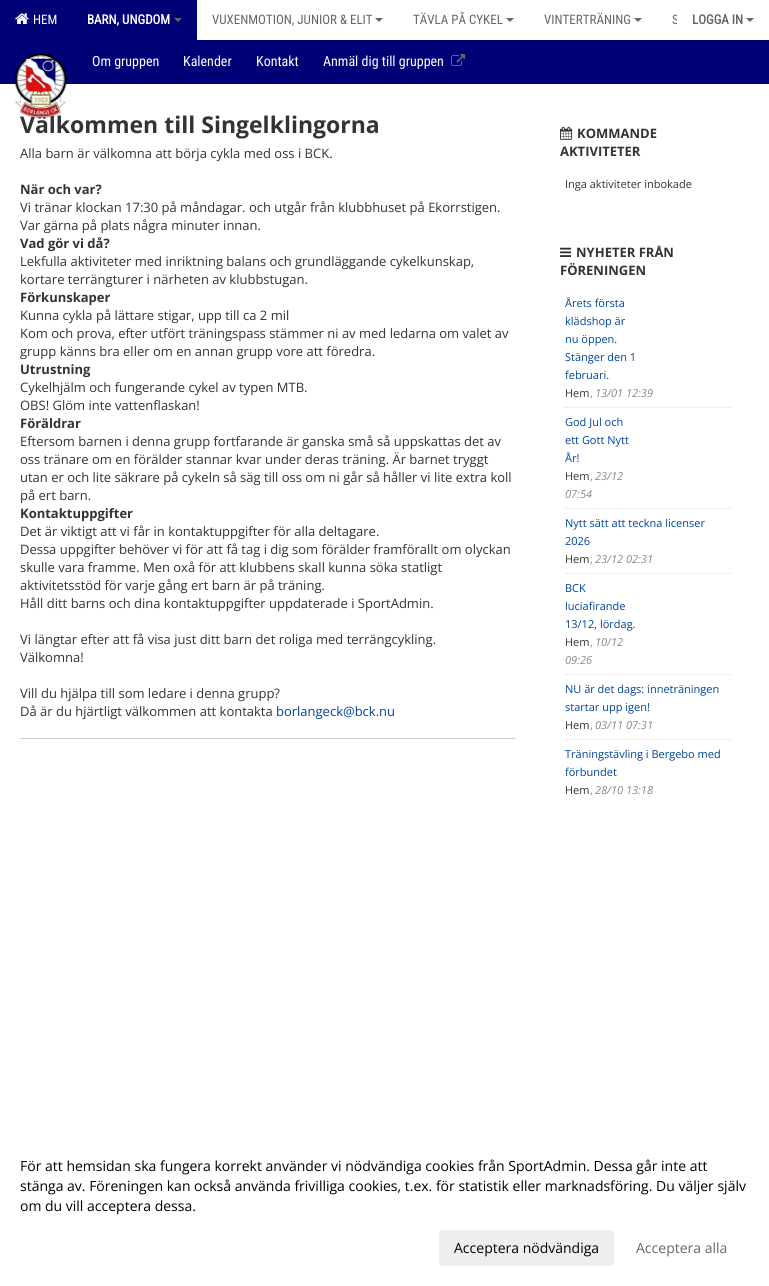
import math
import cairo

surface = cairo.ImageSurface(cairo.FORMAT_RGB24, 769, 1286)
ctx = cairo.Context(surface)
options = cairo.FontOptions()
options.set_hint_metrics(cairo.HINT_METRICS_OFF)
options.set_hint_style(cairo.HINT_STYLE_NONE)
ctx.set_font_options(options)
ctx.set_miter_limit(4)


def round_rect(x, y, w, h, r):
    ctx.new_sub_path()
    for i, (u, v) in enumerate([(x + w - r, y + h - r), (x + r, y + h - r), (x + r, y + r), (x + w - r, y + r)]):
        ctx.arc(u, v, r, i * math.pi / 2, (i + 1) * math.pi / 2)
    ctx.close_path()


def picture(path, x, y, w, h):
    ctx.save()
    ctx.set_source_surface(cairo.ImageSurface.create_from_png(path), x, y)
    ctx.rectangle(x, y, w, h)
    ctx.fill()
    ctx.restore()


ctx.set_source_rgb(1, 1, 1)
ctx.paint()
ctx.set_source_rgb(0.004, 0.004, 0.467)
ctx.rectangle(0, 0, 197, 40)
ctx.fill()
picture("img1.png", 15, 13, 14, 11)
ctx.select_font_face("Roboto Condensed")
ctx.set_font_size(13)
ctx.set_source_rgb(1, 1, 1)
ctx.move_to(33, 24)
ctx.show_text("HEM")
ctx.select_font_face("Roboto Condensed", cairo.FONT_SLANT_NORMAL, cairo.FONT_WEIGHT_BOLD)
ctx.move_to(87, 24)
ctx.show_text("BARN, UNGDOM")
ctx.set_source_rgb(0.4, 0.4, 0.4)
ctx.new_path()
ctx.move_to(174, 18)
ctx.line_to(182, 18)
ctx.line_to(178, 22)
ctx.close_path()
ctx.fill()
ctx.select_font_face("Roboto Condensed")
ctx.move_to(212, 24)
ctx.show_text("VUXENMOTION, JUNIOR & ELIT")
ctx.new_path()
ctx.move_to(375, 18)
ctx.line_to(383, 18)
ctx.line_to(379, 22)
ctx.close_path()
ctx.fill()
ctx.move_to(413, 24)
ctx.show_text("TÄVLA PÅ CYKEL")
ctx.new_path()
ctx.move_to(506, 18)
ctx.line_to(514, 18)
ctx.line_to(510, 22)
ctx.close_path()
ctx.fill()
ctx.move_to(544, 24)
ctx.show_text("VINTERTRÄNING")
ctx.new_path()
ctx.move_to(634, 18)
ctx.line_to(642, 18)
ctx.line_to(638, 22)
ctx.close_path()
ctx.fill()
ctx.move_to(672, 24)
ctx.show_text("S")
ctx.set_source_rgb(1, 1, 1)
ctx.rectangle(677, 15, 2, 9)
ctx.fill()
ctx.select_font_face("Roboto Condensed", cairo.FONT_SLANT_NORMAL, cairo.FONT_WEIGHT_BOLD)
ctx.set_source_rgb(0.4, 0.4, 0.4)
ctx.move_to(692, 24)
ctx.show_text("LOGGA IN")
ctx.new_path()
ctx.move_to(746, 18)
ctx.line_to(754, 18)
ctx.line_to(750, 22)
ctx.close_path()
ctx.fill()
ctx.set_source_rgb(0.004, 0.004, 0.467)
ctx.rectangle(0, 40, 769, 44)
ctx.fill()
ctx.select_font_face("Open Sans", cairo.FONT_SLANT_NORMAL, cairo.FONT_WEIGHT_BOLD)
ctx.set_font_size(23)
ctx.set_source_rgb(0.2, 0.2, 0.2)
ctx.move_to(20, 133)
ctx.show_text("Välkommen till Singelklingorna")
picture("img2.png", 14, 53, 54, 66)
ctx.select_font_face("Roboto Condensed")
ctx.set_font_size(14)
ctx.set_source_rgb(1, 1, 1)
ctx.move_to(92, 66)
ctx.show_text("Om gruppen")
ctx.move_to(183, 66)
ctx.show_text("Kalender")
ctx.move_to(256, 66)
ctx.show_text("Kontakt")
ctx.move_to(323, 66)
ctx.show_text("Anmäl dig till gruppen")
picture("img3.png", 451, 54, 14, 12)
ctx.select_font_face("Open Sans")
ctx.set_font_size(13)
ctx.set_source_rgb(0.2, 0.2, 0.2)
ctx.move_to(20, 158)
ctx.show_text("Alla barn är välkomna att börja cykla med oss i BCK.")
ctx.select_font_face("Open Sans", cairo.FONT_SLANT_NORMAL, cairo.FONT_WEIGHT_BOLD)
ctx.move_to(20, 194)
ctx.show_text("När och var?")
ctx.select_font_face("Open Sans")
ctx.move_to(20, 212)
ctx.show_text("Vi tränar klockan 17:30 på måndagar. och utgår från klubbhuset på Ekorrstigen.")
ctx.move_to(20, 230)
ctx.show_text("Var gärna på plats några minuter innan.")
ctx.select_font_face("Open Sans", cairo.FONT_SLANT_NORMAL, cairo.FONT_WEIGHT_BOLD)
ctx.move_to(20, 248)
ctx.show_text("Vad gör vi då?")
ctx.select_font_face("Open Sans")
ctx.move_to(20, 266)
ctx.show_text("Lekfulla aktiviteter med inriktning balans och grundläggande cykelkunskap,")
ctx.move_to(20, 284)
ctx.show_text("kortare terrängturer i närheten av klubbstugan.")
ctx.select_font_face("Open Sans", cairo.FONT_SLANT_NORMAL, cairo.FONT_WEIGHT_BOLD)
ctx.move_to(20, 302)
ctx.show_text("Förkunskaper")
ctx.select_font_face("Open Sans")
ctx.move_to(20, 320)
ctx.show_text("Kunna cykla på lättare stigar, upp till ca 2 mil")
ctx.move_to(20, 338)
ctx.show_text("Kom och prova, efter utfört träningspass stämmer ni av med ledarna om valet av")
ctx.move_to(20, 356)
ctx.show_text("grupp känns bra eller om en annan grupp vore att föredra.")
ctx.select_font_face("Open Sans", cairo.FONT_SLANT_NORMAL, cairo.FONT_WEIGHT_BOLD)
ctx.move_to(20, 374)
ctx.show_text("Utrustning")
ctx.select_font_face("Open Sans")
ctx.move_to(20, 392)
ctx.show_text("Cykelhjälm och fungerande cykel av typen MTB.")
ctx.move_to(20, 410)
ctx.show_text("OBS! Glöm inte vattenflaskan!")
ctx.select_font_face("Open Sans", cairo.FONT_SLANT_NORMAL, cairo.FONT_WEIGHT_BOLD)
ctx.move_to(20, 428)
ctx.show_text("Föräldrar")
ctx.select_font_face("Open Sans")
ctx.move_to(20, 446)
ctx.show_text("Eftersom barnen i denna grupp fortfarande är ganska små så uppskattas det av")
ctx.move_to(20, 464)
ctx.show_text("oss tränare om en förälder stannar kvar under deras träning. Är barnet tryggt")
ctx.move_to(20, 482)
ctx.show_text("utan er och lite säkrare på cykeln så säg till oss om ni går så håller vi lite extra koll")
ctx.move_to(20, 500)
ctx.show_text("på ert barn.")
ctx.select_font_face("Open Sans", cairo.FONT_SLANT_NORMAL, cairo.FONT_WEIGHT_BOLD)
ctx.move_to(20, 518)
ctx.show_text("Kontaktuppgifter")
ctx.select_font_face("Open Sans")
ctx.move_to(20, 536)
ctx.show_text("Det är viktigt att vi får in kontaktuppgifter för alla deltagare.")
ctx.move_to(20, 554)
ctx.show_text("Dessa uppgifter behöver vi för att få tag i dig som förälder framförallt om olyckan")
ctx.move_to(20, 572)
ctx.show_text("skulle vara framme. Men oxå för att klubbens skall kunna söka statligt")
ctx.move_to(20, 590)
ctx.show_text("aktivitetsstöd för varje gång ert barn är på träning.")
ctx.move_to(20, 608)
ctx.show_text("Håll ditt barns och dina kontaktuppgifter uppdaterade i SportAdmin.")
ctx.move_to(20, 644)
ctx.show_text("Vi längtar efter att få visa just ditt barn det roliga med terrängcykling.")
ctx.move_to(20, 662)
ctx.show_text("Välkomna!")
ctx.move_to(20, 698)
ctx.show_text("Vill du hjälpa till som ledare i denna grupp?")
ctx.move_to(20, 716)
ctx.show_text("Då är du hjärtligt välkommen att kontakta")
ctx.set_source_rgb(0, 0.267, 0.6)
ctx.move_to(276, 716)
ctx.show_text("borlangeck@bck.nu")
ctx.set_source_rgb(0.8, 0.8, 0.8)
ctx.rectangle(20, 738, 495, 1)
ctx.fill()
picture("img4.png", 560, 126, 13, 14)
ctx.select_font_face("Open Sans", cairo.FONT_SLANT_NORMAL, cairo.FONT_WEIGHT_BOLD)
ctx.set_source_rgb(0.2, 0.2, 0.2)
ctx.move_to(577, 138)
ctx.show_text("KOMMANDE")
ctx.move_to(560, 156)
ctx.show_text("AKTIVITETER")
ctx.select_font_face("Open Sans")
ctx.set_font_size(11)
ctx.move_to(565, 188)
ctx.show_text("Inga aktiviteter inbokade")
picture("img5.png", 560, 247, 12, 10)
ctx.select_font_face("Open Sans", cairo.FONT_SLANT_NORMAL, cairo.FONT_WEIGHT_BOLD)
ctx.set_font_size(13)
ctx.move_to(576, 257)
ctx.show_text("NYHETER FRÅN")
ctx.move_to(560, 275)
ctx.show_text("FÖRENINGEN")
ctx.select_font_face("Open Sans")
ctx.set_font_size(11)
ctx.set_source_rgb(0, 0.267, 0.6)
ctx.move_to(565, 307)
ctx.show_text("Årets första")
ctx.move_to(565, 325)
ctx.show_text("klädshop är")
ctx.move_to(565, 343)
ctx.show_text("nu öppen.")
ctx.move_to(565, 361)
ctx.show_text("Stänger den 1")
ctx.move_to(565, 379)
ctx.show_text("februari.")
ctx.set_source_rgb(0.2, 0.2, 0.2)
ctx.move_to(565, 397)
ctx.show_text("Hem")
ctx.set_source_rgb(0.533, 0.533, 0.533)
ctx.move_to(590, 397)
ctx.show_text(",")
ctx.select_font_face("Open Sans", cairo.FONT_SLANT_ITALIC)
ctx.move_to(595, 397)
ctx.show_text("13/01 12:39")
ctx.new_path()
ctx.move_to(565, 407.5)
ctx.line_to(732, 407.5)
ctx.set_source_rgb(0.867, 0.867, 0.867)
ctx.set_line_width(1)
ctx.set_dash([1, 1])
ctx.stroke()
ctx.select_font_face("Open Sans")
ctx.set_source_rgb(0, 0.267, 0.6)
ctx.move_to(565, 426)
ctx.show_text("God Jul och")
ctx.move_to(565, 444)
ctx.show_text("ett Gott Nytt")
ctx.move_to(565, 462)
ctx.show_text("År!")
ctx.set_source_rgb(0.2, 0.2, 0.2)
ctx.move_to(565, 480)
ctx.show_text("Hem")
ctx.set_source_rgb(0.533, 0.533, 0.533)
ctx.move_to(590, 480)
ctx.show_text(",")
ctx.select_font_face("Open Sans", cairo.FONT_SLANT_ITALIC)
ctx.move_to(595, 480)
ctx.show_text("23/12")
ctx.move_to(565, 498)
ctx.show_text("07:54")
ctx.new_path()
ctx.move_to(565, 508.5)
ctx.line_to(732, 508.5)
ctx.set_source_rgb(0.867, 0.867, 0.867)
ctx.stroke()
ctx.select_font_face("Open Sans")
ctx.set_source_rgb(0, 0.267, 0.6)
ctx.move_to(565, 527)
ctx.show_text("Nytt sätt att teckna licenser")
ctx.move_to(565, 545)
ctx.show_text("2026")
ctx.set_source_rgb(0.2, 0.2, 0.2)
ctx.move_to(565, 563)
ctx.show_text("Hem")
ctx.set_source_rgb(0.533, 0.533, 0.533)
ctx.move_to(590, 563)
ctx.show_text(",")
ctx.select_font_face("Open Sans", cairo.FONT_SLANT_ITALIC)
ctx.move_to(595, 563)
ctx.show_text("23/12 02:31")
ctx.new_path()
ctx.move_to(565, 573.5)
ctx.line_to(732, 573.5)
ctx.set_source_rgb(0.867, 0.867, 0.867)
ctx.stroke()
ctx.select_font_face("Open Sans")
ctx.set_source_rgb(0, 0.267, 0.6)
ctx.move_to(565, 592)
ctx.show_text("BCK")
ctx.move_to(565, 610)
ctx.show_text("luciafirande")
ctx.move_to(565, 628)
ctx.show_text("13/12, lördag.")
ctx.set_source_rgb(0.2, 0.2, 0.2)
ctx.move_to(565, 646)
ctx.show_text("Hem")
ctx.set_source_rgb(0.533, 0.533, 0.533)
ctx.move_to(590, 646)
ctx.show_text(",")
ctx.select_font_face("Open Sans", cairo.FONT_SLANT_ITALIC)
ctx.move_to(595, 646)
ctx.show_text("10/12")
ctx.move_to(565, 664)
ctx.show_text("09:26")
ctx.new_path()
ctx.move_to(565, 674.5)
ctx.line_to(732, 674.5)
ctx.set_source_rgb(0.867, 0.867, 0.867)
ctx.stroke()
ctx.select_font_face("Open Sans")
ctx.set_source_rgb(0, 0.267, 0.6)
ctx.move_to(565, 693)
ctx.show_text("NU är det dags: inneträningen")
ctx.move_to(565, 711)
ctx.show_text("startar upp igen!")
ctx.set_source_rgb(0.2, 0.2, 0.2)
ctx.move_to(565, 729)
ctx.show_text("Hem")
ctx.set_source_rgb(0.533, 0.533, 0.533)
ctx.move_to(590, 729)
ctx.show_text(",")
ctx.select_font_face("Open Sans", cairo.FONT_SLANT_ITALIC)
ctx.move_to(595, 729)
ctx.show_text("03/11 07:31")
ctx.new_path()
ctx.move_to(565, 739.5)
ctx.line_to(732, 739.5)
ctx.set_source_rgb(0.867, 0.867, 0.867)
ctx.stroke()
ctx.select_font_face("Open Sans")
ctx.set_source_rgb(0, 0.267, 0.6)
ctx.move_to(565, 758)
ctx.show_text("Träningstävling i Bergebo med")
ctx.move_to(565, 776)
ctx.show_text("förbundet")
ctx.set_source_rgb(0.2, 0.2, 0.2)
ctx.move_to(565, 794)
ctx.show_text("Hem")
ctx.set_source_rgb(0.533, 0.533, 0.533)
ctx.move_to(590, 794)
ctx.show_text(",")
ctx.select_font_face("Open Sans", cairo.FONT_SLANT_ITALIC)
ctx.move_to(595, 794)
ctx.show_text("28/10 13:18")
ctx.select_font_face("Open Sans")
ctx.set_font_size(14)
ctx.set_source_rgb(0, 0, 0)
ctx.move_to(20, 1171)
ctx.show_text("För att hemsidan ska fungera korrekt använder vi nödvändiga cookies från SportAdmin. Dessa går inte att")
ctx.move_to(20, 1191)
ctx.show_text("stänga av. Föreningen kan också använda frivilliga cookies, t.ex. för statistik eller marknadsföring. Du väljer själv")
ctx.move_to(20, 1211)
ctx.show_text("om du vill acceptera dessa.")
ctx.set_source_rgb(0.933, 0.933, 0.933)
round_rect(439, 1230, 175, 36, 4)
ctx.fill()
ctx.set_source_rgb(0, 0, 0)
ctx.move_to(454, 1253)
ctx.show_text("Acceptera nödvändiga")
ctx.set_source_rgb(0.4, 0.4, 0.4)
ctx.move_to(636, 1253)
ctx.show_text("Acceptera alla")
surface.write_to_png("page.png")
